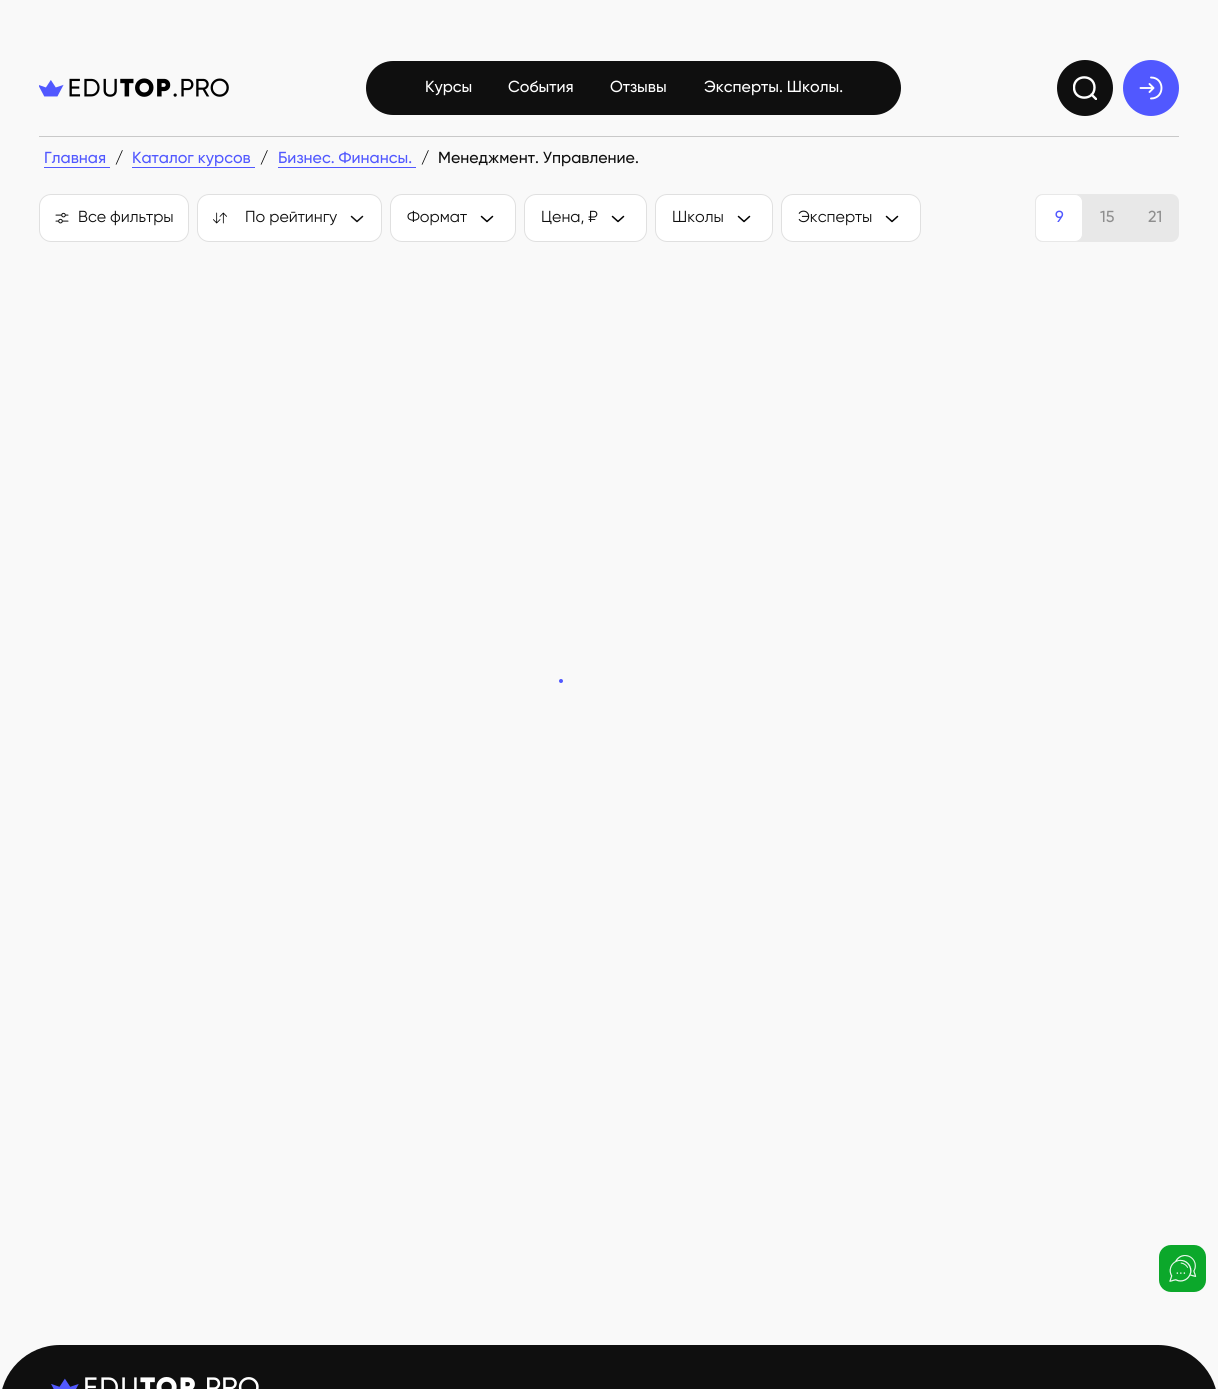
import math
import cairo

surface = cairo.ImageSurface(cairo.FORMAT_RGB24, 1218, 1389)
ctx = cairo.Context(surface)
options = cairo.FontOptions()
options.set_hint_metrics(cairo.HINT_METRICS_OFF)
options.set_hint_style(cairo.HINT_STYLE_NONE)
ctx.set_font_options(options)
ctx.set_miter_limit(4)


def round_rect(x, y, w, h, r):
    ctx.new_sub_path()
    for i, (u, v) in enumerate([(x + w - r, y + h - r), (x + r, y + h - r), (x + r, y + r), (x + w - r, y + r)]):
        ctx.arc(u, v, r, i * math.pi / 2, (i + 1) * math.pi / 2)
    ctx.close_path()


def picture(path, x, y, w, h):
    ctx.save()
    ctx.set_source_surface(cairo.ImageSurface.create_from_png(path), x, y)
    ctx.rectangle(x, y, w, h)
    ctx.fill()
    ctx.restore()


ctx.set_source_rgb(0.973, 0.973, 0.973)
ctx.paint()
picture("img1.png", 39, 78, 190, 19)
ctx.set_source_rgb(0.059, 0.059, 0.059)
round_rect(366, 61, 535, 54, 27)
ctx.fill()
ctx.select_font_face("Gilroy Medium")
ctx.set_font_size(16)
ctx.set_source_rgb(1, 1, 1)
ctx.move_to(425, 92)
ctx.show_text("Курсы")
ctx.move_to(508, 92)
ctx.show_text("События")
ctx.move_to(610, 92)
ctx.show_text("Отзывы")
ctx.move_to(704, 92)
ctx.show_text("Эксперты. Школы.")
ctx.set_source_rgb(0.059, 0.059, 0.059)
ctx.new_path()
ctx.arc(1085, 88, 28, 0, 2 * math.pi)
ctx.fill()
ctx.save()
ctx.rectangle(1073, 76, 24, 24)
ctx.clip()
ctx.new_path()
ctx.move_to(1096, 99)
ctx.line_to(1091.5, 94.5)
ctx.move_to(1094.5, 87.5)
ctx.curve_to(1094.5, 101, 1074, 101, 1074, 87.5)
ctx.curve_to(1074, 74, 1094.5, 74, 1094.5, 87.5)
ctx.close_path()
ctx.set_source_rgb(1, 1, 1)
ctx.set_line_width(2.4)
ctx.set_line_cap(cairo.LINE_CAP_ROUND)
ctx.set_line_join(cairo.LINE_JOIN_ROUND)
ctx.stroke()
ctx.restore()
ctx.set_source_rgb(0.318, 0.345, 1)
ctx.arc(1151, 88, 28, 0, 2 * math.pi)
ctx.fill()
ctx.new_path()
ctx.move_to(1151, 98.5)
ctx.curve_to(1165, 98.5, 1165, 77.5, 1151, 77.5)
ctx.set_source_rgb(1, 1, 1)
ctx.set_line_width(1.9)
ctx.set_line_cap(cairo.LINE_CAP_ROUND)
ctx.stroke()
ctx.new_path()
ctx.move_to(1140.5, 88)
ctx.line_to(1153.5, 88)
ctx.move_to(1153.5, 88)
ctx.line_to(1149.5, 84)
ctx.move_to(1153.5, 88)
ctx.line_to(1149.5, 92)
ctx.set_line_join(cairo.LINE_JOIN_ROUND)
ctx.stroke()
ctx.set_source_rgb(0.788, 0.788, 0.788)
ctx.rectangle(39, 136, 1140, 1)
ctx.fill()
ctx.set_source_rgb(0.318, 0.345, 1)
ctx.move_to(44, 163)
ctx.show_text("Главная")
ctx.rectangle(44, 167, 66, 1)
ctx.fill()
ctx.set_source_rgb(0, 0, 0)
ctx.move_to(115, 163)
ctx.show_text("/")
ctx.set_source_rgb(0.318, 0.345, 1)
ctx.move_to(132, 163)
ctx.show_text("Каталог курсов")
ctx.rectangle(132, 167, 123, 1)
ctx.fill()
ctx.set_source_rgb(0, 0, 0)
ctx.move_to(260, 163)
ctx.show_text("/")
ctx.set_source_rgb(0.318, 0.345, 1)
ctx.move_to(278, 163)
ctx.show_text("Бизнес. Финансы.")
ctx.rectangle(278, 167, 138, 1)
ctx.fill()
ctx.set_source_rgb(0, 0, 0)
ctx.move_to(421, 163)
ctx.show_text("/")
ctx.set_source_rgb(0.059, 0.059, 0.059)
ctx.move_to(438, 163)
ctx.show_text("Менеджмент. Управление.")
ctx.set_source_rgb(1, 1, 1)
round_rect(39.5, 194.5, 149, 47, 11.5)
ctx.fill_preserve()
ctx.set_source_rgb(0.878, 0.878, 0.878)
ctx.set_line_width(1)
ctx.set_line_cap(cairo.LINE_CAP_BUTT)
ctx.set_line_join(cairo.LINE_JOIN_MITER)
ctx.stroke()
picture("img2.png", 55, 212, 14, 12)
ctx.select_font_face("Gilroy")
ctx.set_source_rgb(0.059, 0.059, 0.059)
ctx.move_to(78, 222)
ctx.show_text("Все фильтры")
ctx.set_source_rgb(1, 1, 1)
round_rect(197.5, 194.5, 184, 47, 11.5)
ctx.fill_preserve()
ctx.set_source_rgb(0.878, 0.878, 0.878)
ctx.stroke()
picture("img3.png", 213, 212, 14, 12)
ctx.set_source_rgb(0.059, 0.059, 0.059)
ctx.move_to(245, 222)
ctx.show_text("По рейтингу")
ctx.new_path()
ctx.move_to(362.5, 216.5)
ctx.line_to(357, 221.5)
ctx.line_to(351.5, 216.5)
ctx.set_line_width(1.5)
ctx.set_line_cap(cairo.LINE_CAP_ROUND)
ctx.set_line_join(cairo.LINE_JOIN_ROUND)
ctx.stroke()
ctx.set_source_rgb(1, 1, 1)
round_rect(390.5, 194.5, 125, 47, 11.5)
ctx.fill_preserve()
ctx.set_source_rgb(0.878, 0.878, 0.878)
ctx.set_line_width(1)
ctx.set_line_cap(cairo.LINE_CAP_BUTT)
ctx.set_line_join(cairo.LINE_JOIN_MITER)
ctx.stroke()
ctx.set_source_rgb(0.059, 0.059, 0.059)
ctx.move_to(407, 222)
ctx.show_text("Формат")
ctx.new_path()
ctx.move_to(492.5, 216.5)
ctx.line_to(487, 221.5)
ctx.line_to(481.5, 216.5)
ctx.set_source_rgb(0, 0, 0)
ctx.set_line_width(1.5)
ctx.set_line_cap(cairo.LINE_CAP_ROUND)
ctx.set_line_join(cairo.LINE_JOIN_ROUND)
ctx.stroke()
ctx.set_source_rgb(1, 1, 1)
round_rect(524.5, 194.5, 122, 47, 11.5)
ctx.fill_preserve()
ctx.set_source_rgb(0.878, 0.878, 0.878)
ctx.set_line_width(1)
ctx.set_line_cap(cairo.LINE_CAP_BUTT)
ctx.set_line_join(cairo.LINE_JOIN_MITER)
ctx.stroke()
ctx.set_source_rgb(0.059, 0.059, 0.059)
ctx.move_to(541, 222)
ctx.show_text("Цена, ₽")
ctx.new_path()
ctx.move_to(623.5, 216.5)
ctx.line_to(618, 221.5)
ctx.line_to(612.5, 216.5)
ctx.set_source_rgb(0, 0, 0)
ctx.set_line_width(1.5)
ctx.set_line_cap(cairo.LINE_CAP_ROUND)
ctx.set_line_join(cairo.LINE_JOIN_ROUND)
ctx.stroke()
ctx.set_source_rgb(1, 1, 1)
round_rect(655.5, 194.5, 117, 47, 11.5)
ctx.fill_preserve()
ctx.set_source_rgb(0.878, 0.878, 0.878)
ctx.set_line_width(1)
ctx.set_line_cap(cairo.LINE_CAP_BUTT)
ctx.set_line_join(cairo.LINE_JOIN_MITER)
ctx.stroke()
ctx.set_source_rgb(0.059, 0.059, 0.059)
ctx.move_to(672, 222)
ctx.show_text("Школы")
ctx.new_path()
ctx.move_to(749.5, 216.5)
ctx.line_to(744, 221.5)
ctx.line_to(738.5, 216.5)
ctx.set_source_rgb(0, 0, 0)
ctx.set_line_width(1.5)
ctx.set_line_cap(cairo.LINE_CAP_ROUND)
ctx.set_line_join(cairo.LINE_JOIN_ROUND)
ctx.stroke()
ctx.set_source_rgb(1, 1, 1)
round_rect(781.5, 194.5, 139, 47, 11.5)
ctx.fill_preserve()
ctx.set_source_rgb(0.878, 0.878, 0.878)
ctx.set_line_width(1)
ctx.set_line_cap(cairo.LINE_CAP_BUTT)
ctx.set_line_join(cairo.LINE_JOIN_MITER)
ctx.stroke()
ctx.set_source_rgb(0.059, 0.059, 0.059)
ctx.move_to(798, 222)
ctx.show_text("Эксперты")
ctx.new_path()
ctx.move_to(897.5, 216.5)
ctx.line_to(892, 221.5)
ctx.line_to(886.5, 216.5)
ctx.set_source_rgb(0, 0, 0)
ctx.set_line_width(1.5)
ctx.set_line_cap(cairo.LINE_CAP_ROUND)
ctx.set_line_join(cairo.LINE_JOIN_ROUND)
ctx.stroke()
ctx.set_source_rgb(0.91, 0.91, 0.91)
round_rect(1035, 194, 144, 48, 8)
ctx.fill()
ctx.set_source_rgb(1, 1, 1)
round_rect(1035.5, 194.5, 47, 47, 7.5)
ctx.fill_preserve()
ctx.set_source_rgb(0.91, 0.91, 0.91)
ctx.set_line_width(1)
ctx.set_line_cap(cairo.LINE_CAP_BUTT)
ctx.set_line_join(cairo.LINE_JOIN_MITER)
ctx.stroke()
ctx.select_font_face("Gilroy Medium")
ctx.set_source_rgb(0.318, 0.345, 1)
ctx.move_to(1055, 222)
ctx.show_text("9")
ctx.set_source_rgb(0.557, 0.557, 0.557)
ctx.move_to(1100, 222)
ctx.show_text("15")
ctx.move_to(1148, 222)
ctx.show_text("21")
ctx.set_source_rgb(0.318, 0.345, 1)
ctx.new_path()
ctx.arc(561, 681, 2, 0, 2 * math.pi)
ctx.fill()
ctx.set_source_rgb(0.059, 0.059, 0.059)
ctx.new_path()
ctx.move_to(60, 1345)
ctx.line_to(1158, 1345)
ctx.curve_to(1191, 1345, 1218, 1372, 1218, 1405)
ctx.line_to(1218, 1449)
ctx.line_to(0, 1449)
ctx.line_to(0, 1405)
ctx.curve_to(0, 1372, 27, 1345, 60, 1345)
ctx.close_path()
ctx.fill()
picture("img4.png", 51, 1377, 208, 12)
ctx.set_source_rgb(0.047, 0.659, 0.169)
round_rect(1159, 1245, 47, 47, 12)
ctx.fill()
picture("img5.png", 1169, 1255, 28, 27)
surface.write_to_png("page.png")
